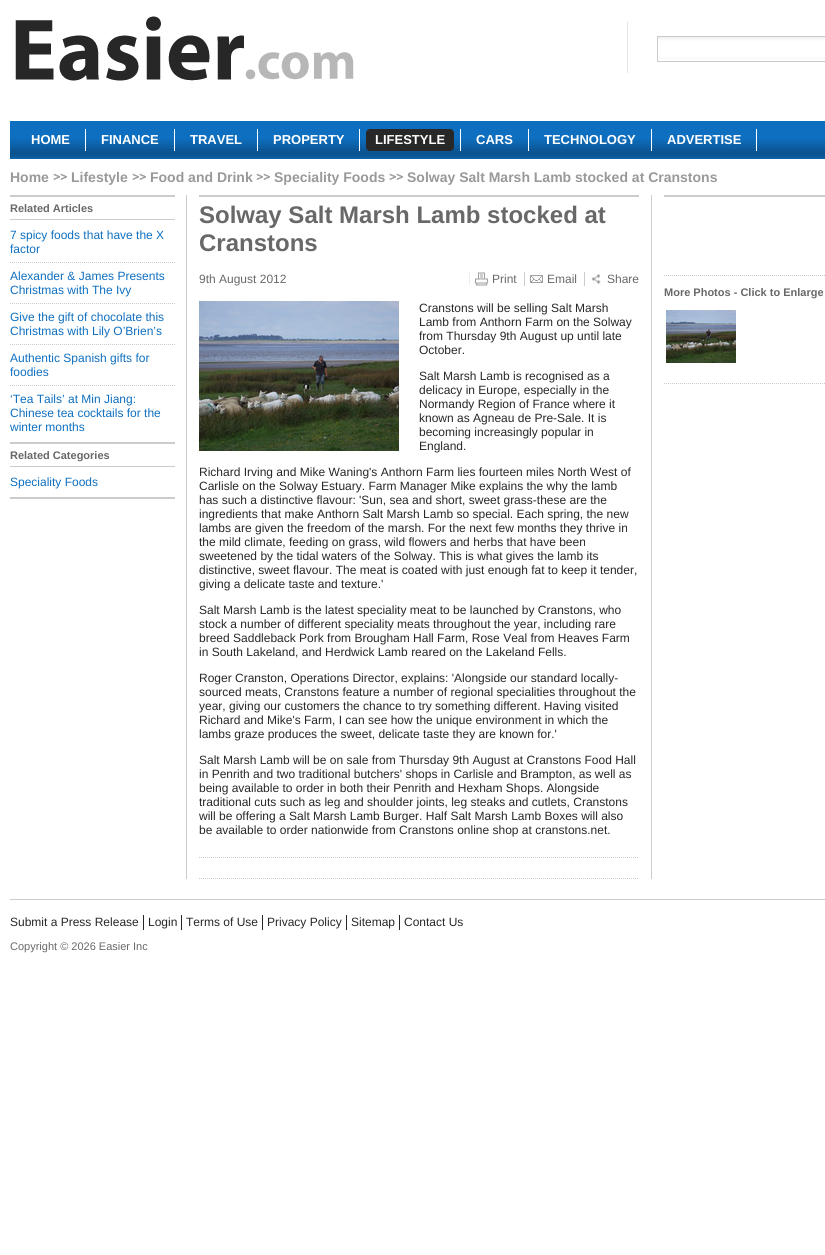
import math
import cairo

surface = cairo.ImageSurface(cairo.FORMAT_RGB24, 825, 1255)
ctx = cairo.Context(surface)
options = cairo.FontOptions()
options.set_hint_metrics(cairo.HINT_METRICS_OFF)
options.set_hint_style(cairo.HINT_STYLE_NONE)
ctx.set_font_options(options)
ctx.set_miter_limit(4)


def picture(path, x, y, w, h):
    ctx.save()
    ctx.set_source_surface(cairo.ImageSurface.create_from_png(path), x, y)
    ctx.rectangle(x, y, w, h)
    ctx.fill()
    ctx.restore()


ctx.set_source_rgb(1, 1, 1)
ctx.paint()
picture("img1.png", 245, 52, 109, 28)
picture("img2.png", 15, 16, 229, 65)
ctx.set_source_rgb(0.894, 0.894, 0.894)
ctx.rectangle(627, 22, 1, 51)
ctx.fill()
picture("img3.png", 658, 37, 167, 22)
ctx.rectangle(657.5, 36.5, 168, 25)
ctx.set_source_rgb(0.8, 0.8, 0.8)
ctx.set_line_width(1)
ctx.stroke()
ctx.set_source_rgb(0.055, 0.435, 0.753)
ctx.rectangle(10, 121, 815, 38)
ctx.fill()
picture("img4.png", 10, 139, 815, 20)
ctx.set_source_rgb(1, 1, 1)
ctx.rectangle(85, 129, 1, 22)
ctx.fill()
ctx.select_font_face("Liberation Sans", cairo.FONT_SLANT_NORMAL, cairo.FONT_WEIGHT_BOLD)
ctx.set_font_size(13)
ctx.move_to(31, 144)
ctx.show_text("HOME")
ctx.rectangle(174, 129, 1, 22)
ctx.fill()
ctx.move_to(101, 144)
ctx.show_text("FINANCE")
ctx.rectangle(257, 129, 1, 22)
ctx.fill()
ctx.move_to(190, 144)
ctx.show_text("TRAVEL")
ctx.rectangle(359, 129, 1, 22)
ctx.fill()
ctx.move_to(273, 144)
ctx.show_text("PROPERTY")
ctx.rectangle(460, 129, 1, 22)
ctx.fill()
picture("img5.png", 366, 129, 9, 22)
ctx.set_source_rgb(0.157, 0.157, 0.157)
ctx.rectangle(375, 129, 70, 22)
ctx.fill()
ctx.set_source_rgb(1, 1, 1)
ctx.move_to(375, 144)
ctx.show_text("LIFESTYLE")
picture("img6.png", 445, 129, 9, 22)
ctx.rectangle(528, 129, 1, 22)
ctx.fill()
ctx.move_to(476, 144)
ctx.show_text("CARS")
ctx.rectangle(651, 129, 1, 22)
ctx.fill()
ctx.move_to(544, 144)
ctx.show_text("TECHNOLOGY")
ctx.rectangle(756, 129, 1, 22)
ctx.fill()
ctx.move_to(667, 144)
ctx.show_text("ADVERTISE")
ctx.set_font_size(14)
ctx.set_source_rgb(0.6, 0.6, 0.6)
ctx.move_to(10, 182)
ctx.show_text("Home")
picture("img7.png", 53, 173, 14, 7)
ctx.move_to(71, 182)
ctx.show_text("Lifestyle")
picture("img7.png", 132, 173, 14, 7)
ctx.move_to(150, 182)
ctx.show_text("Food and Drink")
picture("img7.png", 256, 173, 14, 7)
ctx.move_to(274, 182)
ctx.show_text("Speciality Foods")
picture("img7.png", 389, 173, 14, 7)
ctx.move_to(407, 182)
ctx.show_text("Solway Salt Marsh Lamb stocked at Cranstons")
ctx.set_source_rgb(0.8, 0.8, 0.8)
ctx.rectangle(10, 195, 165, 2)
ctx.fill()
ctx.rectangle(10, 219, 165, 1)
ctx.fill()
ctx.set_font_size(11)
ctx.set_source_rgb(0.408, 0.408, 0.408)
ctx.move_to(10, 212)
ctx.show_text("Related Articles")
ctx.new_path()
ctx.move_to(10, 262.5)
ctx.line_to(175, 262.5)
ctx.set_source_rgb(0.8, 0.8, 0.8)
ctx.set_dash([1, 1])
ctx.stroke()
ctx.select_font_face("Liberation Sans")
ctx.set_font_size(12)
ctx.set_source_rgb(0.055, 0.435, 0.753)
ctx.move_to(10, 239)
ctx.show_text("7 spicy foods that have the X")
ctx.move_to(10, 253)
ctx.show_text("factor")
ctx.new_path()
ctx.move_to(10, 303.5)
ctx.line_to(175, 303.5)
ctx.set_source_rgb(0.8, 0.8, 0.8)
ctx.stroke()
ctx.set_source_rgb(0.055, 0.435, 0.753)
ctx.move_to(10, 280)
ctx.show_text("Alexander & James Presents")
ctx.move_to(10, 294)
ctx.show_text("Christmas with The Ivy")
ctx.new_path()
ctx.move_to(10, 344.5)
ctx.line_to(175, 344.5)
ctx.set_source_rgb(0.8, 0.8, 0.8)
ctx.stroke()
ctx.set_source_rgb(0.055, 0.435, 0.753)
ctx.move_to(10, 321)
ctx.show_text("Give the gift of chocolate this")
ctx.move_to(10, 335)
ctx.show_text("Christmas with Lily O’Brien’s")
ctx.new_path()
ctx.move_to(10, 385.5)
ctx.line_to(175, 385.5)
ctx.set_source_rgb(0.8, 0.8, 0.8)
ctx.stroke()
ctx.set_source_rgb(0.055, 0.435, 0.753)
ctx.move_to(10, 362)
ctx.show_text("Authentic Spanish gifts for")
ctx.move_to(10, 376)
ctx.show_text("foodies")
ctx.move_to(10, 403)
ctx.show_text("‘Tea Tails’ at Min Jiang:")
ctx.move_to(10, 417)
ctx.show_text("Chinese tea cocktails for the")
ctx.move_to(10, 431)
ctx.show_text("winter months")
ctx.set_source_rgb(0.8, 0.8, 0.8)
ctx.rectangle(10, 442, 165, 2)
ctx.fill()
ctx.rectangle(10, 466, 165, 1)
ctx.fill()
ctx.select_font_face("Liberation Sans", cairo.FONT_SLANT_NORMAL, cairo.FONT_WEIGHT_BOLD)
ctx.set_font_size(11)
ctx.set_source_rgb(0.408, 0.408, 0.408)
ctx.move_to(10, 459)
ctx.show_text("Related Categories")
ctx.set_source_rgb(0.8, 0.8, 0.8)
ctx.rectangle(10, 497, 165, 2)
ctx.fill()
ctx.select_font_face("Liberation Sans")
ctx.set_font_size(12)
ctx.set_source_rgb(0.055, 0.435, 0.753)
ctx.move_to(10, 486)
ctx.show_text("Speciality Foods")
ctx.set_source_rgb(0.8, 0.8, 0.8)
ctx.rectangle(651, 195, 1, 684)
ctx.fill()
ctx.rectangle(186, 195, 1, 684)
ctx.fill()
ctx.rectangle(199, 195, 440, 2)
ctx.fill()
ctx.select_font_face("Liberation Sans", cairo.FONT_SLANT_NORMAL, cairo.FONT_WEIGHT_BOLD)
ctx.set_font_size(24)
ctx.set_source_rgb(0.408, 0.408, 0.408)
ctx.move_to(199, 223)
ctx.show_text("Solway Salt Marsh Lamb stocked at")
ctx.move_to(199, 251)
ctx.show_text("Cranstons")
ctx.select_font_face("Liberation Sans")
ctx.set_font_size(12)
ctx.move_to(199, 283)
ctx.show_text("9th August 2012")
picture("img8.png", 474, 272, 15, 14)
ctx.move_to(492, 283)
ctx.show_text("Print")
ctx.new_path()
ctx.move_to(469.5, 272)
ctx.line_to(469.5, 286)
ctx.set_source_rgb(0.867, 0.867, 0.867)
ctx.stroke()
picture("img9.png", 530, 275, 13, 8)
ctx.set_source_rgb(0.408, 0.408, 0.408)
ctx.move_to(547, 283)
ctx.show_text("Email")
ctx.set_source_rgb(0.8, 0.8, 0.8)
ctx.rectangle(524, 272, 1, 14)
ctx.fill()
picture("img10.png", 591, 274, 10, 11)
ctx.set_source_rgb(0.408, 0.408, 0.408)
ctx.move_to(607, 283)
ctx.show_text("Share")
ctx.set_source_rgb(0.8, 0.8, 0.8)
ctx.rectangle(584, 272, 1, 14)
ctx.fill()
picture("img11.png", 199, 301, 200, 150)
ctx.set_source_rgb(0.153, 0.153, 0.153)
ctx.move_to(419, 312)
ctx.show_text("Cranstons will be selling Salt Marsh")
ctx.move_to(419, 326)
ctx.show_text("Lamb from Anthorn Farm on the Solway")
ctx.move_to(419, 340)
ctx.show_text("from Thursday 9th August up until late")
ctx.move_to(419, 354)
ctx.show_text("October.")
ctx.move_to(419, 380)
ctx.show_text("Salt Marsh Lamb is recognised as a")
ctx.move_to(419, 394)
ctx.show_text("delicacy in Europe, especially in the")
ctx.move_to(419, 408)
ctx.show_text("Normandy Region of France where it")
ctx.move_to(419, 422)
ctx.show_text("known as Agneau de Pre-Sale. It is")
ctx.move_to(419, 436)
ctx.show_text("becoming increasingly popular in")
ctx.move_to(419, 450)
ctx.show_text("England.")
ctx.move_to(199, 476)
ctx.show_text("Richard Irving and Mike Waning's Anthorn Farm lies fourteen miles North West of")
ctx.move_to(199, 490)
ctx.show_text("Carlisle on the Solway Estuary. Farm Manager Mike explains the why the lamb")
ctx.move_to(199, 504)
ctx.show_text("has such a distinctive flavour: 'Sun, sea and short, sweet grass-these are the")
ctx.move_to(199, 518)
ctx.show_text("ingredients that make Anthorn Salt Marsh Lamb so special. Each spring, the new")
ctx.move_to(199, 532)
ctx.show_text("lambs are given the freedom of the marsh. For the next few months they thrive in")
ctx.move_to(199, 546)
ctx.show_text("the mild climate, feeding on grass, wild flowers and herbs that have been")
ctx.move_to(199, 560)
ctx.show_text("sweetened by the tidal waters of the Solway. This is what gives the lamb its")
ctx.move_to(199, 574)
ctx.show_text("distinctive, sweet flavour. The meat is coated with just enough fat to keep it tender,")
ctx.move_to(199, 588)
ctx.show_text("giving a delicate taste and texture.'")
ctx.move_to(199, 614)
ctx.show_text("Salt Marsh Lamb is the latest speciality meat to be launched by Cranstons, who")
ctx.move_to(199, 628)
ctx.show_text("stock a number of different speciality meats throughout the year, including rare")
ctx.move_to(199, 642)
ctx.show_text("breed Saddleback Pork from Brougham Hall Farm, Rose Veal from Heaves Farm")
ctx.move_to(199, 656)
ctx.show_text("in South Lakeland, and Herdwick Lamb reared on the Lakeland Fells.")
ctx.move_to(199, 682)
ctx.show_text("Roger Cranston, Operations Director, explains: 'Alongside our standard locally-")
ctx.move_to(199, 696)
ctx.show_text("sourced meats, Cranstons feature a number of regional specialities throughout the")
ctx.move_to(199, 710)
ctx.show_text("year, giving our customers the chance to try something different. Having visited")
ctx.move_to(199, 724)
ctx.show_text("Richard and Mike's Farm, I can see how the unique environment in which the")
ctx.move_to(199, 738)
ctx.show_text("lambs graze produces the sweet, delicate taste they are known for.'")
ctx.move_to(199, 764)
ctx.show_text("Salt Marsh Lamb will be on sale from Thursday 9th August at Cranstons Food Hall")
ctx.move_to(199, 778)
ctx.show_text("in Penrith and two traditional butchers' shops in Carlisle and Brampton, as well as")
ctx.move_to(199, 792)
ctx.show_text("being available to order in both their Penrith and Hexham Shops. Alongside")
ctx.move_to(199, 806)
ctx.show_text("traditional cuts such as leg and shoulder joints, leg steaks and cutlets, Cranstons")
ctx.move_to(199, 820)
ctx.show_text("will be offering a Salt Marsh Lamb Burger. Half Salt Marsh Lamb Boxes will also")
ctx.move_to(199, 834)
ctx.show_text("be available to order nationwide from Cranstons online shop at cranstons.net.")
ctx.new_path()
ctx.move_to(199, 857.5)
ctx.line_to(639, 857.5)
ctx.set_source_rgb(0.8, 0.8, 0.8)
ctx.stroke()
ctx.new_path()
ctx.move_to(199, 878.5)
ctx.line_to(639, 878.5)
ctx.stroke()
ctx.rectangle(664, 195, 161, 2)
ctx.fill()
ctx.new_path()
ctx.move_to(664, 275.5)
ctx.line_to(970, 275.5)
ctx.stroke()
ctx.new_path()
ctx.move_to(664, 383.5)
ctx.line_to(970, 383.5)
ctx.stroke()
ctx.select_font_face("Liberation Sans", cairo.FONT_SLANT_NORMAL, cairo.FONT_WEIGHT_BOLD)
ctx.set_font_size(11)
ctx.set_source_rgb(0.408, 0.408, 0.408)
ctx.move_to(664, 296)
ctx.show_text("More Photos - Click to Enlarge")
picture("img12.png", 666, 310, 70, 53)
ctx.set_source_rgb(0.8, 0.8, 0.8)
ctx.rectangle(10, 899, 815, 1)
ctx.fill()
ctx.set_source_rgb(0.153, 0.153, 0.153)
ctx.rectangle(143, 915, 1, 15)
ctx.fill()
ctx.select_font_face("Liberation Sans")
ctx.set_font_size(12)
ctx.move_to(10, 926)
ctx.show_text("Submit a Press Release")
ctx.rectangle(181, 915, 1, 15)
ctx.fill()
ctx.move_to(148, 926)
ctx.show_text("Login")
ctx.rectangle(262, 915, 1, 15)
ctx.fill()
ctx.move_to(186, 926)
ctx.show_text("Terms of Use")
ctx.rectangle(346, 915, 1, 15)
ctx.fill()
ctx.move_to(267, 926)
ctx.show_text("Privacy Policy")
ctx.rectangle(399, 915, 1, 15)
ctx.fill()
ctx.move_to(351, 926)
ctx.show_text("Sitemap")
ctx.move_to(404, 926)
ctx.show_text("Contact Us")
ctx.set_font_size(11)
ctx.set_source_rgb(0.408, 0.408, 0.408)
ctx.move_to(10, 950)
ctx.show_text("Copyright © 2026 Easier Inc")
surface.write_to_png("page.png")
